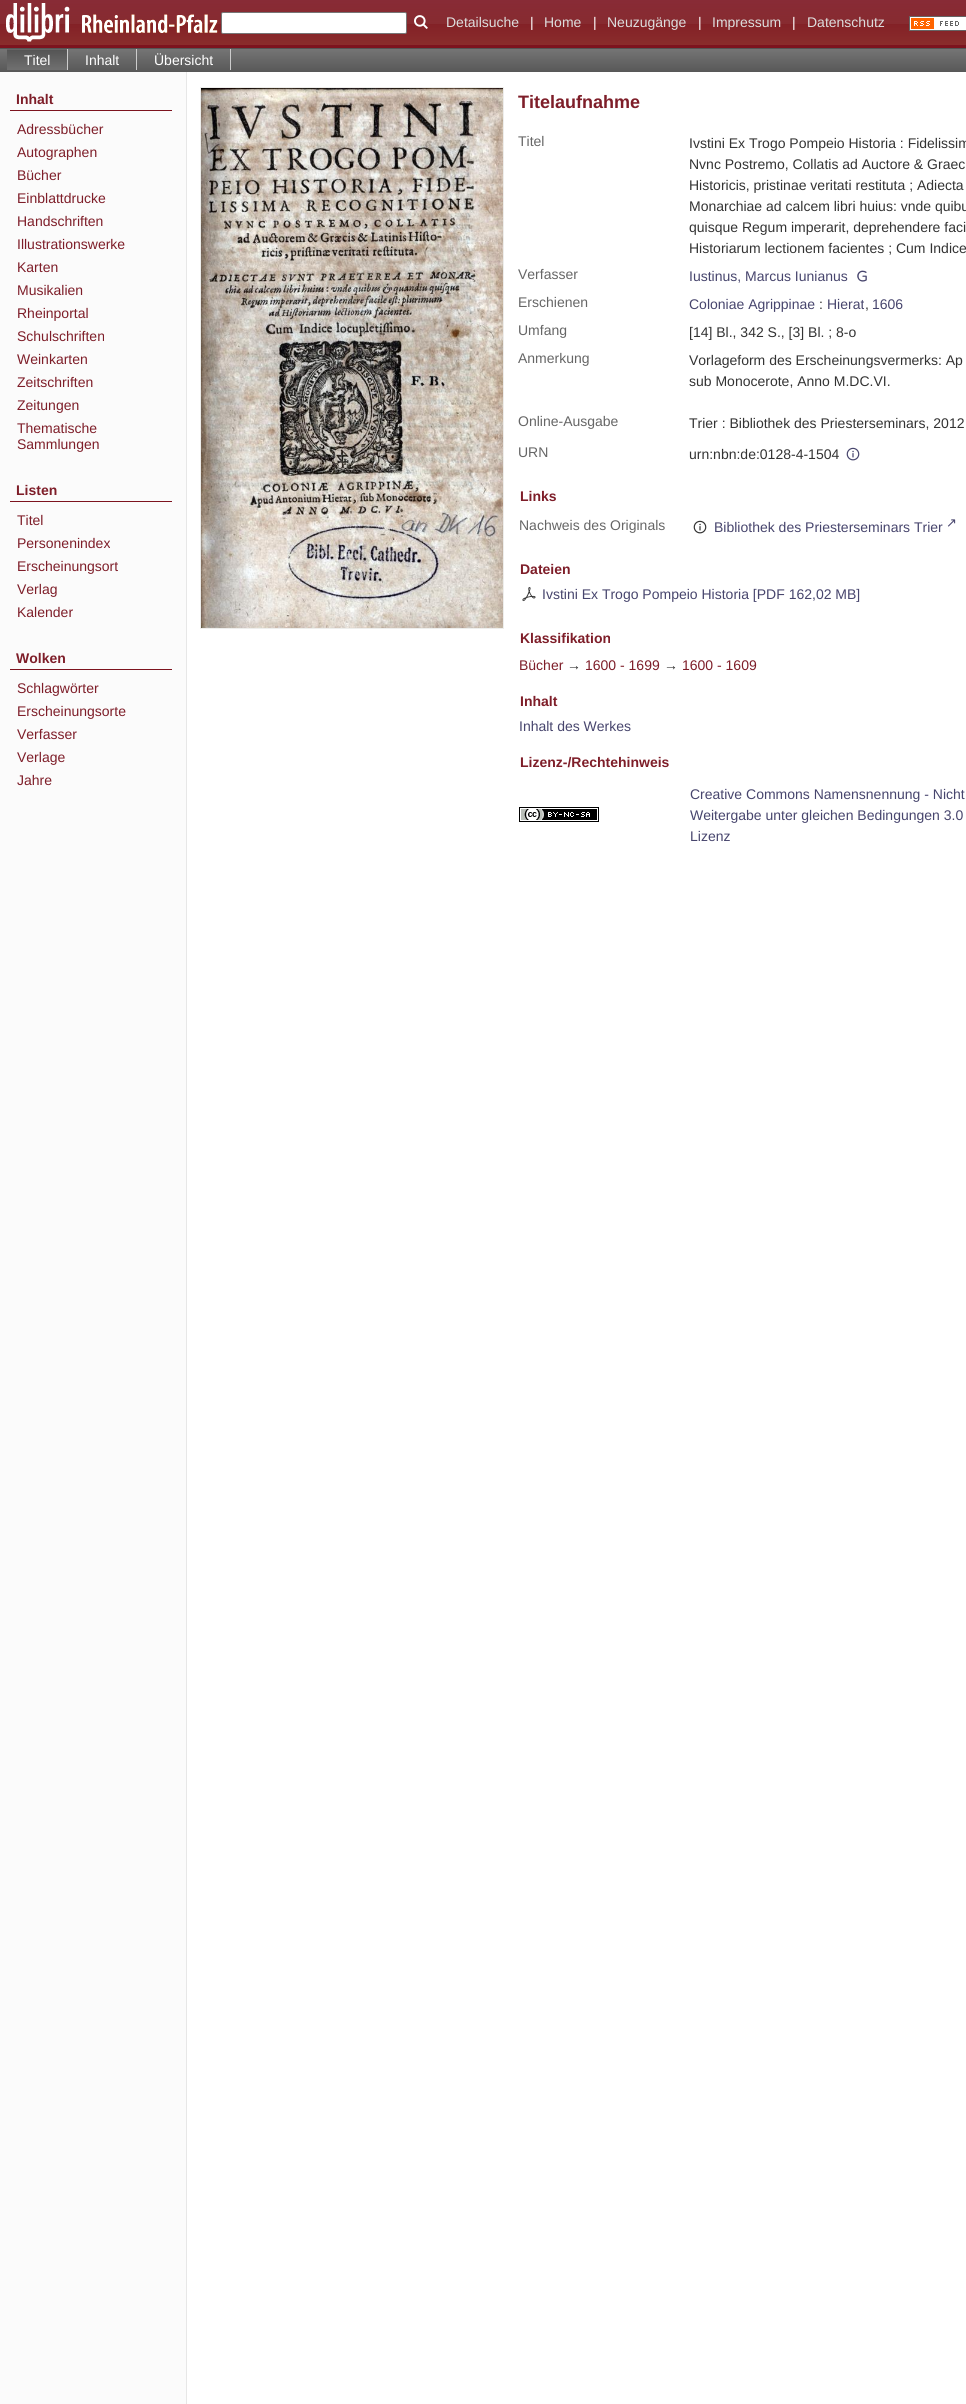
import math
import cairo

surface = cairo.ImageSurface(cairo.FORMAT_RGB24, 966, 2404)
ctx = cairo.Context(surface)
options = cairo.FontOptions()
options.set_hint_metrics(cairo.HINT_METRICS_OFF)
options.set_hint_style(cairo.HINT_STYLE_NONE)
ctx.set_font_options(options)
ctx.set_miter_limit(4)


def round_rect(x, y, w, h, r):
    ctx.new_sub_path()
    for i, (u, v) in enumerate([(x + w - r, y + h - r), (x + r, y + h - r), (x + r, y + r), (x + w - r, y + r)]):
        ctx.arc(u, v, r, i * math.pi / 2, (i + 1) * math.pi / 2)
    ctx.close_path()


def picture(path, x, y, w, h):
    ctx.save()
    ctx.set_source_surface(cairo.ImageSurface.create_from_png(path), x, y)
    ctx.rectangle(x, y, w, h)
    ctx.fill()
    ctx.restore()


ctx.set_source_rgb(1, 1, 1)
ctx.paint()
ctx.set_source_rgb(0.49, 0.078, 0.118)
ctx.rectangle(0, 45, 966, 3)
ctx.fill()
picture("img1.png", 0, 0, 966, 45)
picture("img2.png", 6, 3, 212, 39)
ctx.set_source_rgb(1, 1, 1)
round_rect(221.5, 12.5, 185, 21, 1.5)
ctx.fill_preserve()
ctx.set_source_rgb(0.463, 0.463, 0.463)
ctx.set_line_width(1)
ctx.stroke()
picture("img3.png", 414, 15, 14, 14)
ctx.select_font_face("Liberation Sans")
ctx.set_font_size(14)
ctx.set_source_rgb(0.867, 0.867, 0.867)
ctx.move_to(446, 27)
ctx.show_text("Detailsuche")
ctx.set_source_rgb(1, 1, 1)
ctx.move_to(530, 27)
ctx.show_text("|")
ctx.set_source_rgb(0.867, 0.867, 0.867)
ctx.move_to(544, 27)
ctx.show_text("Home")
ctx.set_source_rgb(1, 1, 1)
ctx.move_to(593, 27)
ctx.show_text("|")
ctx.set_source_rgb(0.867, 0.867, 0.867)
ctx.move_to(607, 27)
ctx.show_text("Neuzugänge")
ctx.set_source_rgb(1, 1, 1)
ctx.move_to(698, 27)
ctx.show_text("|")
ctx.set_source_rgb(0.867, 0.867, 0.867)
ctx.move_to(712, 27)
ctx.show_text("Impressum")
ctx.set_source_rgb(1, 1, 1)
ctx.move_to(792, 27)
ctx.show_text("|")
ctx.set_source_rgb(0.867, 0.867, 0.867)
ctx.move_to(807, 27)
ctx.show_text("Datenschutz")
picture("img4.png", 909, 16, 57, 15)
picture("img5.png", 0, 49, 966, 23)
ctx.set_source_rgb(0.333, 0.333, 0.333)
ctx.rectangle(0, 48, 966, 1)
ctx.fill()
picture("img6.png", 7, 49, 60, 21)
ctx.set_source_rgb(0.8, 0.8, 0.8)
ctx.rectangle(67, 49, 1, 21)
ctx.fill()
ctx.set_source_rgb(1, 1, 1)
ctx.move_to(24, 65)
ctx.show_text("Titel")
ctx.set_source_rgb(0.8, 0.8, 0.8)
ctx.rectangle(136, 49, 1, 21)
ctx.fill()
ctx.set_source_rgb(1, 1, 1)
ctx.move_to(85, 65)
ctx.show_text("Inhalt")
ctx.set_source_rgb(0.8, 0.8, 0.8)
ctx.rectangle(230, 49, 1, 21)
ctx.fill()
ctx.set_source_rgb(1, 1, 1)
ctx.move_to(154, 65)
ctx.show_text("Übersicht")
ctx.set_source_rgb(0.984, 0.984, 0.984)
ctx.rectangle(0, 72, 186, 2332)
ctx.fill()
ctx.set_source_rgb(0.906, 0.906, 0.906)
ctx.rectangle(186, 72, 1, 2332)
ctx.fill()
ctx.set_source_rgb(0.49, 0.078, 0.118)
ctx.rectangle(10, 110, 162, 1)
ctx.fill()
ctx.select_font_face("Liberation Sans", cairo.FONT_SLANT_NORMAL, cairo.FONT_WEIGHT_BOLD)
ctx.set_source_rgb(0.494, 0.118, 0.161)
ctx.move_to(16, 104)
ctx.show_text("Inhalt")
ctx.select_font_face("Liberation Sans")
ctx.move_to(17, 134)
ctx.show_text("Adressbücher")
ctx.move_to(17, 157)
ctx.show_text("Autographen")
ctx.move_to(17, 180)
ctx.show_text("Bücher")
ctx.move_to(17, 203)
ctx.show_text("Einblattdrucke")
ctx.move_to(17, 226)
ctx.show_text("Handschriften")
ctx.move_to(17, 249)
ctx.show_text("Illustrationswerke")
ctx.move_to(17, 272)
ctx.show_text("Karten")
ctx.move_to(17, 295)
ctx.show_text("Musikalien")
ctx.move_to(17, 318)
ctx.show_text("Rheinportal")
ctx.move_to(17, 341)
ctx.show_text("Schulschriften")
ctx.move_to(17, 364)
ctx.show_text("Weinkarten")
ctx.move_to(17, 387)
ctx.show_text("Zeitschriften")
ctx.move_to(17, 410)
ctx.show_text("Zeitungen")
ctx.move_to(17, 433)
ctx.show_text("Thematische")
ctx.move_to(17, 449)
ctx.show_text("Sammlungen")
ctx.set_source_rgb(0.49, 0.078, 0.118)
ctx.rectangle(10, 501, 162, 1)
ctx.fill()
ctx.select_font_face("Liberation Sans", cairo.FONT_SLANT_NORMAL, cairo.FONT_WEIGHT_BOLD)
ctx.set_source_rgb(0.494, 0.118, 0.161)
ctx.move_to(16, 495)
ctx.show_text("Listen")
ctx.select_font_face("Liberation Sans")
ctx.move_to(17, 525)
ctx.show_text("Titel")
ctx.move_to(17, 548)
ctx.show_text("Personenindex")
ctx.move_to(17, 571)
ctx.show_text("Erscheinungsort")
ctx.move_to(17, 594)
ctx.show_text("Verlag")
ctx.move_to(17, 617)
ctx.show_text("Kalender")
ctx.set_source_rgb(0.49, 0.078, 0.118)
ctx.rectangle(10, 669, 162, 1)
ctx.fill()
ctx.select_font_face("Liberation Sans", cairo.FONT_SLANT_NORMAL, cairo.FONT_WEIGHT_BOLD)
ctx.set_source_rgb(0.494, 0.118, 0.161)
ctx.move_to(16, 663)
ctx.show_text("Wolken")
ctx.select_font_face("Liberation Sans")
ctx.move_to(17, 693)
ctx.show_text("Schlagwörter")
ctx.move_to(17, 716)
ctx.show_text("Erscheinungsorte")
ctx.move_to(17, 739)
ctx.show_text("Verfasser")
ctx.move_to(17, 762)
ctx.show_text("Verlage")
ctx.move_to(17, 785)
ctx.show_text("Jahre")
ctx.rectangle(200.5, 87.5, 303, 541)
ctx.set_source_rgb(0.933, 0.933, 0.925)
ctx.stroke()
picture("img7.png", 201, 88, 302, 540)
ctx.select_font_face("Liberation Sans", cairo.FONT_SLANT_NORMAL, cairo.FONT_WEIGHT_BOLD)
ctx.set_font_size(18)
ctx.set_source_rgb(0.494, 0.118, 0.161)
ctx.move_to(518, 108)
ctx.show_text("Titelaufnahme")
ctx.select_font_face("Liberation Sans")
ctx.set_font_size(14)
ctx.set_source_rgb(0.4, 0.4, 0.4)
ctx.move_to(518, 146)
ctx.show_text("Titel")
ctx.set_source_rgb(0.2, 0.2, 0.2)
ctx.move_to(689, 148)
ctx.show_text("Ivstini Ex Trogo Pompeio Historia : Fidelissim")
ctx.move_to(689, 169)
ctx.show_text("Nvnc Postremo, Collatis ad Auctore & Graec")
ctx.move_to(689, 190)
ctx.show_text("Historicis, pristinae veritati restituta ; Adiecta")
ctx.move_to(689, 211)
ctx.show_text("Monarchiae ad calcem libri huius: vnde quibu")
ctx.move_to(689, 232)
ctx.show_text("quisque Regum imperarit, deprehendere faci")
ctx.move_to(689, 253)
ctx.show_text("Historiarum lectionem facientes ; Cum Indice")
ctx.set_source_rgb(0.4, 0.4, 0.4)
ctx.move_to(518, 279)
ctx.show_text("Verfasser")
ctx.set_source_rgb(0.278, 0.271, 0.427)
ctx.move_to(689, 281)
ctx.show_text("Iustinus, Marcus Iunianus")
picture("img8.png", 857, 270, 10, 12)
ctx.set_source_rgb(0.4, 0.4, 0.4)
ctx.move_to(518, 307)
ctx.show_text("Erschienen")
ctx.set_source_rgb(0.278, 0.271, 0.427)
ctx.move_to(689, 309)
ctx.show_text("Coloniae Agrippinae")
ctx.set_source_rgb(0.2, 0.2, 0.2)
ctx.move_to(819, 309)
ctx.show_text(":")
ctx.set_source_rgb(0.278, 0.271, 0.427)
ctx.move_to(827, 309)
ctx.show_text("Hierat")
ctx.set_source_rgb(0.2, 0.2, 0.2)
ctx.move_to(865, 309)
ctx.show_text(",")
ctx.set_source_rgb(0.278, 0.271, 0.427)
ctx.move_to(872, 309)
ctx.show_text("1606")
ctx.set_source_rgb(0.4, 0.4, 0.4)
ctx.move_to(518, 335)
ctx.show_text("Umfang")
ctx.set_source_rgb(0.2, 0.2, 0.2)
ctx.move_to(689, 337)
ctx.show_text("[14] Bl., 342 S., [3] Bl. ; 8-o")
ctx.set_source_rgb(0.4, 0.4, 0.4)
ctx.move_to(518, 363)
ctx.show_text("Anmerkung")
ctx.set_source_rgb(0.2, 0.2, 0.2)
ctx.move_to(689, 365)
ctx.show_text("Vorlageform des Erscheinungsvermerks: Ap")
ctx.move_to(689, 386)
ctx.show_text("sub Monocerote, Anno M.DC.VI.")
ctx.set_source_rgb(0.4, 0.4, 0.4)
ctx.move_to(518, 426)
ctx.show_text("Online-Ausgabe")
ctx.set_source_rgb(0.2, 0.2, 0.2)
ctx.move_to(689, 428)
ctx.show_text("Trier : Bibliothek des Priesterseminars, 2012")
ctx.set_source_rgb(0.4, 0.4, 0.4)
ctx.move_to(518, 457)
ctx.show_text("URN")
ctx.set_source_rgb(0.2, 0.2, 0.2)
ctx.move_to(689, 459)
ctx.show_text("urn:nbn:de:0128-4-1504")
picture("img9.png", 846, 447, 14, 14)
ctx.select_font_face("Liberation Sans", cairo.FONT_SLANT_NORMAL, cairo.FONT_WEIGHT_BOLD)
ctx.set_source_rgb(0.494, 0.118, 0.161)
ctx.move_to(520, 501)
ctx.show_text("Links")
ctx.select_font_face("Liberation Sans")
ctx.set_source_rgb(0.4, 0.4, 0.4)
ctx.move_to(519, 530)
ctx.show_text("Nachweis des Originals")
picture("img10.png", 693, 520, 14, 14)
ctx.set_source_rgb(0.278, 0.271, 0.427)
ctx.move_to(714, 532)
ctx.show_text("Bibliothek des Priesterseminars Trier")
ctx.select_font_face("DejaVu Sans")
ctx.set_font_size(13)
ctx.move_to(946, 527)
ctx.show_text("↗")
ctx.select_font_face("Liberation Sans", cairo.FONT_SLANT_NORMAL, cairo.FONT_WEIGHT_BOLD)
ctx.set_font_size(14)
ctx.set_source_rgb(0.494, 0.118, 0.161)
ctx.move_to(520, 574)
ctx.show_text("Dateien")
picture("img11.png", 522, 587, 14, 15)
ctx.select_font_face("Liberation Sans")
ctx.set_source_rgb(0.278, 0.271, 0.427)
ctx.move_to(542, 599)
ctx.show_text("Ivstini Ex Trogo Pompeio Historia [PDF 162,02 MB]")
ctx.select_font_face("Liberation Sans", cairo.FONT_SLANT_NORMAL, cairo.FONT_WEIGHT_BOLD)
ctx.set_source_rgb(0.494, 0.118, 0.161)
ctx.move_to(520, 643)
ctx.show_text("Klassifikation")
ctx.select_font_face("Liberation Sans")
ctx.move_to(519, 670)
ctx.show_text("Bücher")
ctx.set_source_rgb(0.2, 0.2, 0.2)
ctx.move_to(567, 670)
ctx.show_text("→")
ctx.set_source_rgb(0.494, 0.118, 0.161)
ctx.move_to(585, 670)
ctx.show_text("1600 - 1699")
ctx.set_source_rgb(0.2, 0.2, 0.2)
ctx.move_to(664, 670)
ctx.show_text("→")
ctx.set_source_rgb(0.494, 0.118, 0.161)
ctx.move_to(682, 670)
ctx.show_text("1600 - 1609")
ctx.select_font_face("Liberation Sans", cairo.FONT_SLANT_NORMAL, cairo.FONT_WEIGHT_BOLD)
ctx.move_to(520, 706)
ctx.show_text("Inhalt")
ctx.select_font_face("Liberation Sans")
ctx.set_source_rgb(0.278, 0.271, 0.427)
ctx.move_to(519, 731)
ctx.show_text("Inhalt des Werkes")
ctx.select_font_face("Liberation Sans", cairo.FONT_SLANT_NORMAL, cairo.FONT_WEIGHT_BOLD)
ctx.set_source_rgb(0.494, 0.118, 0.161)
ctx.move_to(520, 767)
ctx.show_text("Lizenz-/Rechtehinweis")
picture("img12.png", 519, 807, 80, 15)
ctx.select_font_face("Liberation Sans")
ctx.set_source_rgb(0.278, 0.271, 0.427)
ctx.move_to(690, 799)
ctx.show_text("Creative Commons Namensnennung - Nicht")
ctx.move_to(690, 820)
ctx.show_text("Weitergabe unter gleichen Bedingungen 3.0")
ctx.move_to(690, 841)
ctx.show_text("Lizenz")
surface.write_to_png("page.png")
